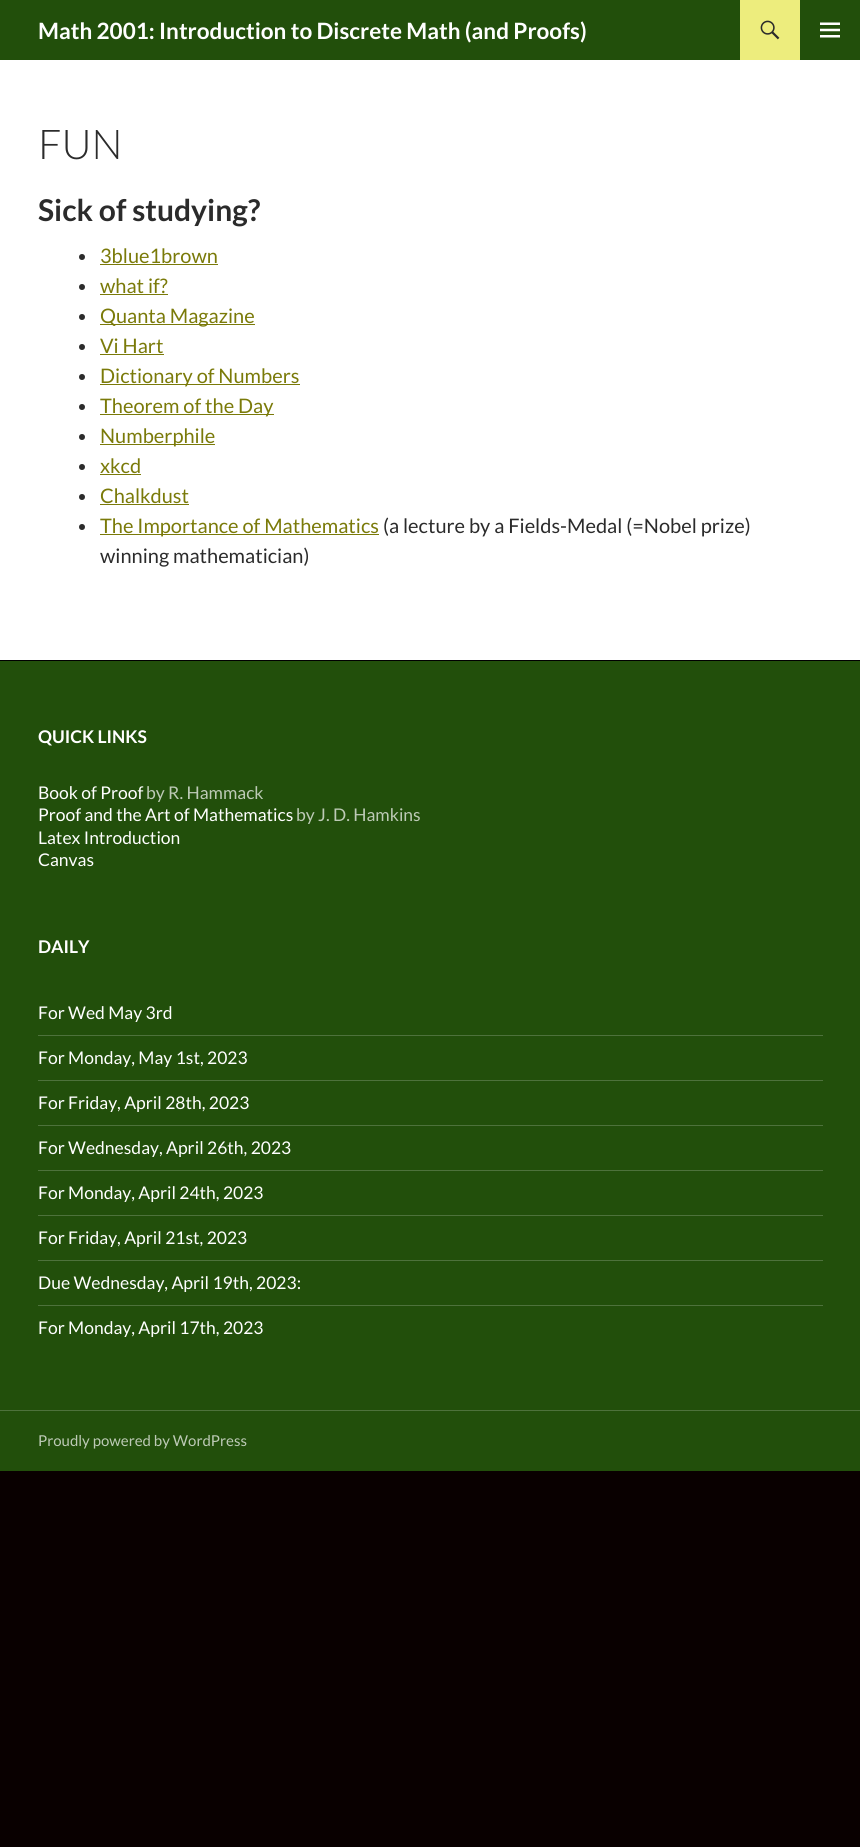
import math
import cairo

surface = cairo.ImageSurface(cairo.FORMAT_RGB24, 860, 1847)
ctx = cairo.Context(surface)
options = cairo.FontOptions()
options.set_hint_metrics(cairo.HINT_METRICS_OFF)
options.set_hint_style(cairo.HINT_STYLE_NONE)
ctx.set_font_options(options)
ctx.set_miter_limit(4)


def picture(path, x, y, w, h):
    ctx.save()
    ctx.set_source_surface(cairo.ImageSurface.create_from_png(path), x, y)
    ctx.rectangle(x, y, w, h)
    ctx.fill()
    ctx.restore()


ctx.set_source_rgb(0.039, 0, 0)
ctx.paint()
ctx.set_source_rgb(1, 1, 1)
ctx.rectangle(0, 60, 860, 600)
ctx.fill()
ctx.set_source_rgb(0.133, 0.31, 0.043)
ctx.rectangle(0, 0, 860, 60)
ctx.fill()
ctx.select_font_face("Lato", cairo.FONT_SLANT_NORMAL, cairo.FONT_WEIGHT_BOLD)
ctx.set_font_size(22.5)
ctx.set_source_rgb(1, 1, 1)
ctx.move_to(38, 39)
ctx.show_text("Math 2001: Introduction to Discrete Math (and Proofs)")
ctx.set_source_rgb(0.929, 0.929, 0.49)
ctx.rectangle(740, 0, 60, 60)
ctx.fill()
picture("img1.png", 760, 20, 20, 20)
picture("img2.png", 820, 22, 20, 16)
ctx.select_font_face("Lato Light")
ctx.set_font_size(41)
ctx.set_source_rgb(0.169, 0.169, 0.169)
ctx.move_to(38, 159)
ctx.show_text("FUN")
ctx.select_font_face("Lato", cairo.FONT_SLANT_NORMAL, cairo.FONT_WEIGHT_BOLD)
ctx.set_font_size(30)
ctx.move_to(38, 221)
ctx.show_text("Sick of studying?")
ctx.new_path()
ctx.arc(82, 257, 3, 0, 2 * math.pi)
ctx.fill()
ctx.select_font_face("Lato")
ctx.set_font_size(20)
ctx.set_source_rgb(0.478, 0.478, 0.039)
ctx.move_to(100, 263)
ctx.show_text("3blue1brown")
ctx.rectangle(100, 264, 118, 1)
ctx.fill()
ctx.set_source_rgb(0.169, 0.169, 0.169)
ctx.arc(82, 287, 3, 0, 2 * math.pi)
ctx.fill()
ctx.set_source_rgb(0.478, 0.478, 0.039)
ctx.move_to(100, 293)
ctx.show_text("what if?")
ctx.rectangle(100, 294, 68, 1)
ctx.fill()
ctx.set_source_rgb(0.169, 0.169, 0.169)
ctx.arc(82, 317, 3, 0, 2 * math.pi)
ctx.fill()
ctx.set_source_rgb(0.478, 0.478, 0.039)
ctx.rectangle(100, 324, 155, 1)
ctx.fill()
ctx.move_to(100, 323)
ctx.show_text("Quanta Magazine")
ctx.set_source_rgb(0.169, 0.169, 0.169)
ctx.new_path()
ctx.arc(82, 347, 3, 0, 2 * math.pi)
ctx.fill()
ctx.set_source_rgb(0.478, 0.478, 0.039)
ctx.move_to(100, 353)
ctx.show_text("Vi Hart")
ctx.rectangle(100, 354, 64, 1)
ctx.fill()
ctx.set_source_rgb(0.169, 0.169, 0.169)
ctx.arc(82, 377, 3, 0, 2 * math.pi)
ctx.fill()
ctx.set_source_rgb(0.478, 0.478, 0.039)
ctx.rectangle(100, 384, 200, 1)
ctx.fill()
ctx.move_to(100, 383)
ctx.show_text("Dictionary of Numbers")
ctx.set_source_rgb(0.169, 0.169, 0.169)
ctx.new_path()
ctx.arc(82, 407, 3, 0, 2 * math.pi)
ctx.fill()
ctx.set_source_rgb(0.478, 0.478, 0.039)
ctx.rectangle(100, 414, 174, 1)
ctx.fill()
ctx.move_to(100, 413)
ctx.show_text("Theorem of the Day")
ctx.set_source_rgb(0.169, 0.169, 0.169)
ctx.new_path()
ctx.arc(82, 437, 3, 0, 2 * math.pi)
ctx.fill()
ctx.set_source_rgb(0.478, 0.478, 0.039)
ctx.rectangle(100, 444, 115, 1)
ctx.fill()
ctx.move_to(100, 443)
ctx.show_text("Numberphile")
ctx.set_source_rgb(0.169, 0.169, 0.169)
ctx.new_path()
ctx.arc(82, 467, 3, 0, 2 * math.pi)
ctx.fill()
ctx.set_source_rgb(0.478, 0.478, 0.039)
ctx.move_to(100, 473)
ctx.show_text("xkcd")
ctx.rectangle(100, 474, 41, 1)
ctx.fill()
ctx.set_source_rgb(0.169, 0.169, 0.169)
ctx.arc(82, 497, 3, 0, 2 * math.pi)
ctx.fill()
ctx.set_source_rgb(0.478, 0.478, 0.039)
ctx.move_to(100, 503)
ctx.show_text("Chalkdust")
ctx.rectangle(100, 504, 89, 1)
ctx.fill()
ctx.set_source_rgb(0.169, 0.169, 0.169)
ctx.arc(82, 527, 3, 0, 2 * math.pi)
ctx.fill()
ctx.set_source_rgb(0.478, 0.478, 0.039)
ctx.rectangle(100, 534, 279, 1)
ctx.fill()
ctx.move_to(100, 533)
ctx.show_text("The Importance of Mathematics")
ctx.set_source_rgb(0.169, 0.169, 0.169)
ctx.move_to(383, 533)
ctx.show_text("(a lecture by a Fields-Medal (=Nobel prize)")
ctx.move_to(100, 563)
ctx.show_text("winning mathematician)")
ctx.set_source_rgb(0.133, 0.31, 0.043)
ctx.rectangle(0, 661, 860, 749)
ctx.fill()
ctx.set_source_rgb(0, 0, 0)
ctx.rectangle(0, 660, 860, 1)
ctx.fill()
ctx.set_source_rgb(0.306, 0.447, 0.235)
ctx.rectangle(0, 1410, 860, 1)
ctx.fill()
ctx.select_font_face("Lato", cairo.FONT_SLANT_NORMAL, cairo.FONT_WEIGHT_BOLD)
ctx.set_font_size(17.5)
ctx.set_source_rgb(1, 1, 1)
ctx.move_to(38, 743)
ctx.show_text("QUICK LINKS")
ctx.select_font_face("Lato")
ctx.move_to(38, 799)
ctx.show_text("Book of Proof")
ctx.set_source_rgb(0.741, 0.792, 0.714)
ctx.move_to(146, 799)
ctx.show_text("by R. Hammack")
ctx.set_source_rgb(1, 1, 1)
ctx.move_to(38, 821)
ctx.show_text("Proof and the Art of Mathematics")
ctx.set_source_rgb(0.741, 0.792, 0.714)
ctx.move_to(296, 821)
ctx.show_text("by J. D. Hamkins")
ctx.set_source_rgb(1, 1, 1)
ctx.move_to(38, 844)
ctx.show_text("Latex Introduction")
ctx.move_to(38, 866)
ctx.show_text("Canvas")
ctx.select_font_face("Lato", cairo.FONT_SLANT_NORMAL, cairo.FONT_WEIGHT_BOLD)
ctx.move_to(38, 953)
ctx.show_text("DAILY")
ctx.select_font_face("Lato")
ctx.move_to(38, 1019)
ctx.show_text("For Wed May 3rd")
ctx.set_source_rgb(0.306, 0.447, 0.235)
ctx.rectangle(38, 1035, 785, 1)
ctx.fill()
ctx.set_source_rgb(1, 1, 1)
ctx.move_to(38, 1064)
ctx.show_text("For Monday, May 1st, 2023")
ctx.set_source_rgb(0.306, 0.447, 0.235)
ctx.rectangle(38, 1080, 785, 1)
ctx.fill()
ctx.set_source_rgb(1, 1, 1)
ctx.move_to(38, 1109)
ctx.show_text("For Friday, April 28th, 2023")
ctx.set_source_rgb(0.306, 0.447, 0.235)
ctx.rectangle(38, 1125, 785, 1)
ctx.fill()
ctx.set_source_rgb(1, 1, 1)
ctx.move_to(38, 1154)
ctx.show_text("For Wednesday, April 26th, 2023")
ctx.set_source_rgb(0.306, 0.447, 0.235)
ctx.rectangle(38, 1170, 785, 1)
ctx.fill()
ctx.set_source_rgb(1, 1, 1)
ctx.move_to(38, 1199)
ctx.show_text("For Monday, April 24th, 2023")
ctx.set_source_rgb(0.306, 0.447, 0.235)
ctx.rectangle(38, 1215, 785, 1)
ctx.fill()
ctx.set_source_rgb(1, 1, 1)
ctx.move_to(38, 1244)
ctx.show_text("For Friday, April 21st, 2023")
ctx.set_source_rgb(0.306, 0.447, 0.235)
ctx.rectangle(38, 1260, 785, 1)
ctx.fill()
ctx.set_source_rgb(1, 1, 1)
ctx.move_to(38, 1289)
ctx.show_text("Due Wednesday, April 19th, 2023:")
ctx.set_source_rgb(0.306, 0.447, 0.235)
ctx.rectangle(38, 1305, 785, 1)
ctx.fill()
ctx.set_source_rgb(1, 1, 1)
ctx.move_to(38, 1334)
ctx.show_text("For Monday, April 17th, 2023")
ctx.set_source_rgb(0.133, 0.31, 0.043)
ctx.rectangle(0, 1411, 860, 60)
ctx.fill()
ctx.set_font_size(15)
ctx.set_source_rgb(0.741, 0.792, 0.714)
ctx.move_to(38, 1446)
ctx.show_text("Proudly powered by WordPress")
surface.write_to_png("page.png")
